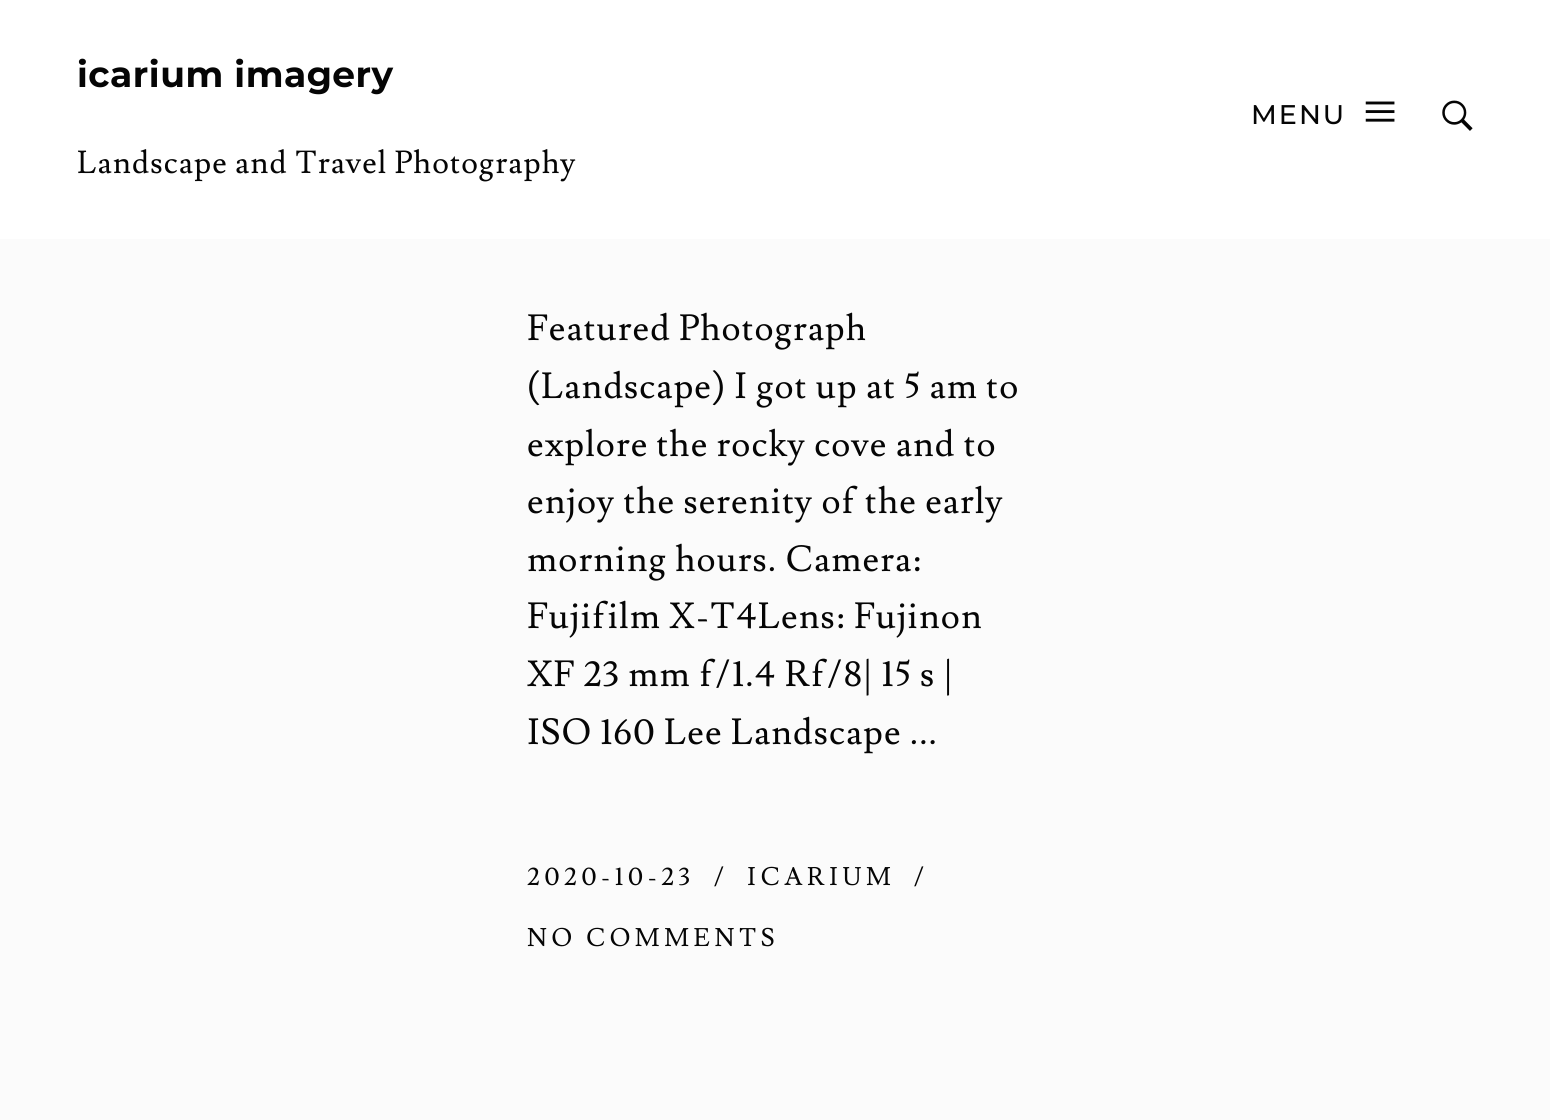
import math
import cairo

surface = cairo.ImageSurface(cairo.FORMAT_RGB24, 1550, 1120)
ctx = cairo.Context(surface)
options = cairo.FontOptions()
options.set_hint_metrics(cairo.HINT_METRICS_OFF)
options.set_hint_style(cairo.HINT_STYLE_NONE)
ctx.set_font_options(options)
ctx.set_miter_limit(4)


def spaced_text(x, y, s, letter, word):
    ctx.move_to(x, y)
    for ch in s:
        ctx.show_text(ch)
        ctx.rel_move_to(letter + word * (ch == ' '), 0)


def picture(path, x, y, w, h):
    ctx.save()
    ctx.set_source_surface(cairo.ImageSurface.create_from_png(path), x, y)
    ctx.rectangle(x, y, w, h)
    ctx.fill()
    ctx.restore()


ctx.set_source_rgb(0.984, 0.984, 0.984)
ctx.paint()
ctx.set_source_rgb(1, 1, 1)
ctx.rectangle(0, 0, 1550, 239)
ctx.fill()
ctx.select_font_face("Montserrat", cairo.FONT_SLANT_NORMAL, cairo.FONT_WEIGHT_BOLD)
ctx.set_font_size(36)
ctx.set_source_rgb(0.02, 0.02, 0.02)
spaced_text(77, 87, "icarium imagery", 0.5, 0)
ctx.select_font_face("Montserrat Medium")
ctx.set_font_size(27)
spaced_text(1251, 124, "MENU", 2, 0)
picture("img1.png", 1365, 101, 30, 21)
picture("img2.png", 1442, 100, 31, 31)
ctx.select_font_face("Lusitana")
ctx.set_font_size(31.5)
spaced_text(77, 173, "Landscape and Travel Photography", 1.1, 0)
ctx.set_font_size(36)
spaced_text(527, 340, "Featured Photograph", 1.1, 0)
spaced_text(527, 398, "(Landscape) I got up at 5 am to", 1.1, 0)
spaced_text(527, 456, "explore the rocky cove and to", 1.1, 0)
spaced_text(527, 513, "enjoy the serenity of the early", 1.1, 0)
spaced_text(527, 571, "morning hours. Camera:", 1.1, 0)
spaced_text(527, 628, "Fujifilm X-T4Lens: Fujinon", 1.1, 0)
spaced_text(527, 686, "XF 23 mm f/1.4 Rf/8| 15 s |", 1.1, 0)
spaced_text(527, 744, "ISO 160 Lee Landscape ...", 1.1, 0)
ctx.set_font_size(25.25)
spaced_text(527, 885, "2020-10-23", 4.5, 0)
spaced_text(713, 885, "/", 4.5, 0)
spaced_text(747, 885, "ICARIUM", 4.5, 0)
spaced_text(913, 885, "/", 4.5, 0)
spaced_text(527, 946, "NO COMMENTS", 4.5, 0)
surface.write_to_png("page.png")
